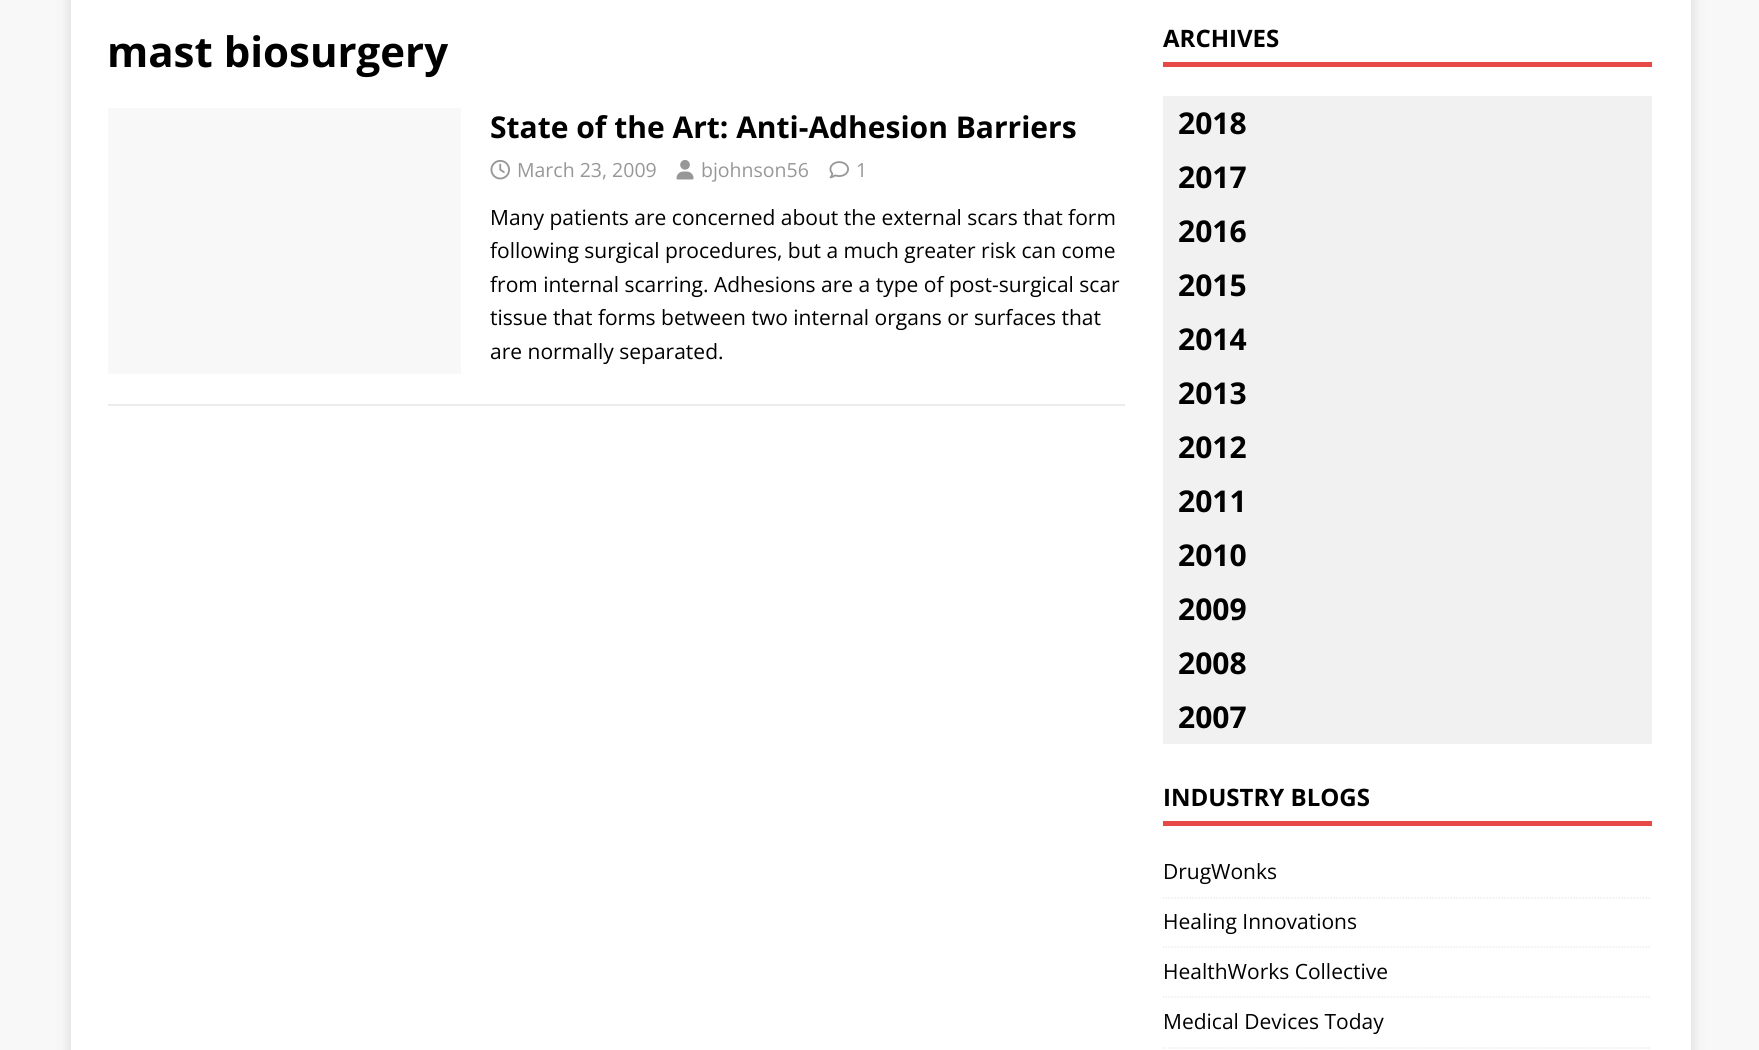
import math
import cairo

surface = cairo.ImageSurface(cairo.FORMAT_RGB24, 1759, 1050)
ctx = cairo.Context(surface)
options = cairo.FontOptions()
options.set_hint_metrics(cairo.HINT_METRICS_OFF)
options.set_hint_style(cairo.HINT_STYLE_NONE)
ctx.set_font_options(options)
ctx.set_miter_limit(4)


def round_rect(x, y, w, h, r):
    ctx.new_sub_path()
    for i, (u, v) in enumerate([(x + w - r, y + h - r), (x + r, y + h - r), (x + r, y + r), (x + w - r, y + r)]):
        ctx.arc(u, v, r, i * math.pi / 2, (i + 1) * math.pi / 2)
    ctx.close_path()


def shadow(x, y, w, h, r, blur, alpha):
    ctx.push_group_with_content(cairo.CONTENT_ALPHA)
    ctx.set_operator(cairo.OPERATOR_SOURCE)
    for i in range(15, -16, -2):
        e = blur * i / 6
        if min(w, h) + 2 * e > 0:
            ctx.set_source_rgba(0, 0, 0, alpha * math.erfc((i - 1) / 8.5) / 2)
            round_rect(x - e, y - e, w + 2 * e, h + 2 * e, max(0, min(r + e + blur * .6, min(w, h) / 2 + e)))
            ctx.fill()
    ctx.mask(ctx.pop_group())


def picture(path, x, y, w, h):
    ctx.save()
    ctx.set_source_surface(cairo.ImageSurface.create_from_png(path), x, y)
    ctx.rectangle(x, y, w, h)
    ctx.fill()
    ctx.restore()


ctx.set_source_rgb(0.969, 0.969, 0.969)
ctx.paint()
ctx.set_source_rgb(0.196, 0.196, 0.196)
shadow(71, -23, 1620, 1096, 0, 7.5, 0.17)
ctx.set_source_rgb(1, 1, 1)
ctx.rectangle(71, 0, 1620, 1050)
ctx.fill()
ctx.select_font_face("Open Sans", cairo.FONT_SLANT_NORMAL, cairo.FONT_WEIGHT_BOLD)
ctx.set_font_size(42)
ctx.set_source_rgb(0, 0, 0)
ctx.move_to(107, 67)
ctx.show_text("mast biosurgery")
ctx.set_source_rgb(0.922, 0.922, 0.922)
ctx.rectangle(108, 404, 1017, 2)
ctx.fill()
ctx.set_source_rgb(0.969, 0.969, 0.969)
ctx.rectangle(108, 108, 353, 266)
ctx.fill()
ctx.set_font_size(30)
ctx.set_source_rgb(0, 0, 0)
ctx.move_to(490, 138)
ctx.show_text("State of the Art: Anti-Adhesion Barriers")
picture("img1.png", 490, 159, 20, 21)
ctx.select_font_face("Open Sans")
ctx.set_font_size(19.5)
ctx.set_source_rgb(0.592, 0.592, 0.592)
ctx.move_to(517, 177)
ctx.show_text("March 23, 2009")
picture("img2.png", 676, 160, 18, 20)
ctx.move_to(701, 177)
ctx.show_text("bjohnson56")
picture("img3.png", 829, 161, 20, 18)
ctx.move_to(856, 177)
ctx.show_text("1")
ctx.set_font_size(21)
ctx.set_source_rgb(0, 0, 0)
ctx.move_to(490, 225)
ctx.show_text("Many patients are concerned about the external scars that form")
ctx.move_to(490, 258)
ctx.show_text("following surgical procedures, but a much greater risk can come")
ctx.move_to(490, 292)
ctx.show_text("from internal scarring. Adhesions are a type of post-surgical scar")
ctx.move_to(490, 325)
ctx.show_text("tissue that forms between two internal organs or surfaces that")
ctx.move_to(490, 359)
ctx.show_text("are normally separated.")
ctx.set_source_rgb(0.902, 0.286, 0.275)
ctx.rectangle(1163, 62, 489, 5)
ctx.fill()
ctx.select_font_face("Open Sans", cairo.FONT_SLANT_NORMAL, cairo.FONT_WEIGHT_BOLD)
ctx.set_font_size(24)
ctx.set_source_rgb(0, 0, 0)
ctx.move_to(1163, 47)
ctx.show_text("ARCHIVES")
ctx.set_source_rgb(0.945, 0.945, 0.945)
ctx.rectangle(1163, 96, 489, 648)
ctx.fill()
ctx.set_font_size(30)
ctx.set_source_rgb(0, 0, 0)
ctx.move_to(1178, 134)
ctx.show_text("2018")
ctx.move_to(1178, 188)
ctx.show_text("2017")
ctx.move_to(1178, 242)
ctx.show_text("2016")
ctx.move_to(1178, 296)
ctx.show_text("2015")
ctx.move_to(1178, 350)
ctx.show_text("2014")
ctx.move_to(1178, 404)
ctx.show_text("2013")
ctx.move_to(1178, 458)
ctx.show_text("2012")
ctx.move_to(1178, 512)
ctx.show_text("2011")
ctx.move_to(1178, 566)
ctx.show_text("2010")
ctx.move_to(1178, 620)
ctx.show_text("2009")
ctx.move_to(1178, 674)
ctx.show_text("2008")
ctx.move_to(1178, 728)
ctx.show_text("2007")
ctx.set_source_rgb(0.902, 0.286, 0.275)
ctx.rectangle(1163, 821, 489, 5)
ctx.fill()
ctx.set_font_size(24)
ctx.set_source_rgb(0, 0, 0)
ctx.move_to(1163, 806)
ctx.show_text("INDUSTRY BLOGS")
ctx.new_path()
ctx.move_to(1162.5, 898)
ctx.line_to(1651.5, 898)
ctx.set_source_rgb(0.922, 0.922, 0.922)
ctx.set_line_width(1.5)
ctx.set_dash([1.5, 1.5])
ctx.stroke()
ctx.select_font_face("Open Sans")
ctx.set_font_size(21)
ctx.set_source_rgb(0, 0, 0)
ctx.move_to(1163, 879)
ctx.show_text("DrugWonks")
ctx.new_path()
ctx.move_to(1162.5, 947)
ctx.line_to(1651.5, 947)
ctx.set_source_rgb(0.922, 0.922, 0.922)
ctx.stroke()
ctx.set_source_rgb(0, 0, 0)
ctx.move_to(1163, 929)
ctx.show_text("Healing Innovations")
ctx.new_path()
ctx.move_to(1162.5, 997)
ctx.line_to(1651.5, 997)
ctx.set_source_rgb(0.922, 0.922, 0.922)
ctx.stroke()
ctx.set_source_rgb(0, 0, 0)
ctx.move_to(1163, 979)
ctx.show_text("HealthWorks Collective")
ctx.new_path()
ctx.move_to(1162.5, 1048)
ctx.line_to(1651.5, 1048)
ctx.set_source_rgb(0.922, 0.922, 0.922)
ctx.stroke()
ctx.set_source_rgb(0, 0, 0)
ctx.move_to(1163, 1029)
ctx.show_text("Medical Devices Today")
surface.write_to_png("page.png")
